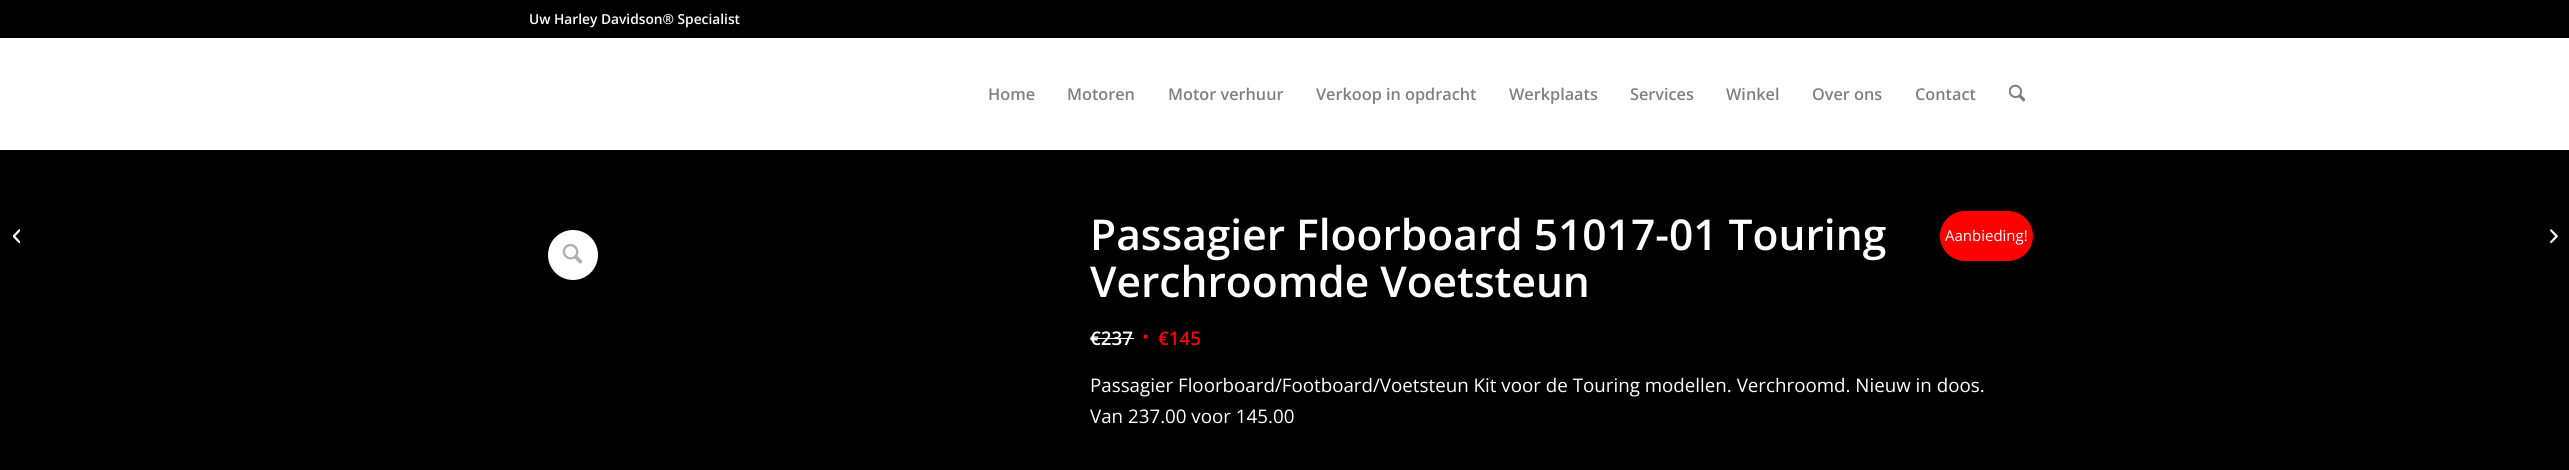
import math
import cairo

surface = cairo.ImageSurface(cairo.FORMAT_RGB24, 2569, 470)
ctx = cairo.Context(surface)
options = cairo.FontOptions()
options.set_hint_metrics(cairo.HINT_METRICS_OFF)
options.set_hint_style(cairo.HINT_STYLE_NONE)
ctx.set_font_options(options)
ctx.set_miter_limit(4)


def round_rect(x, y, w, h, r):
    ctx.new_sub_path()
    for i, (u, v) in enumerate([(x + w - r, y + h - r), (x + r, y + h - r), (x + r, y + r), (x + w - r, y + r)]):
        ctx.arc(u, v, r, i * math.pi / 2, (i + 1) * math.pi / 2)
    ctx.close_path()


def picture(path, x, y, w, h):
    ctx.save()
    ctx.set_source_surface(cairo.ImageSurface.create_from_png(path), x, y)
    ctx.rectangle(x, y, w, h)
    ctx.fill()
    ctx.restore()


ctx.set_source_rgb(0, 0, 0)
ctx.paint()
ctx.select_font_face("Open Sans SemiBold")
ctx.set_font_size(13.75)
ctx.set_source_rgb(1, 1, 1)
ctx.move_to(529, 24)
ctx.show_text("Uw Harley Davidson® Specialist")
ctx.rectangle(0, 38, 2569, 112)
ctx.fill()
ctx.set_font_size(16.25)
ctx.set_source_rgb(0.502, 0.502, 0.502)
ctx.move_to(988, 100)
ctx.show_text("Home")
ctx.move_to(1067, 100)
ctx.show_text("Motoren")
ctx.move_to(1168, 100)
ctx.show_text("Motor verhuur")
ctx.move_to(1316, 100)
ctx.show_text("Verkoop in opdracht")
ctx.move_to(1509, 100)
ctx.show_text("Werkplaats")
ctx.move_to(1630, 100)
ctx.show_text("Services")
ctx.move_to(1726, 100)
ctx.show_text("Winkel")
ctx.move_to(1812, 100)
ctx.show_text("Over ons")
ctx.move_to(1915, 100)
ctx.show_text("Contact")
picture("img1.png", 2009, 84, 16, 18)
picture("img2.png", 13, 229, 7, 15)
ctx.set_font_size(42.5)
ctx.set_source_rgb(1, 1, 1)
ctx.move_to(1090, 250)
ctx.show_text("Passagier Floorboard 51017-01 Touring")
ctx.move_to(1090, 297)
ctx.show_text("Verchroomde Voetsteun")
ctx.set_font_size(18.75)
ctx.move_to(1090, 345)
ctx.show_text("€237")
ctx.rectangle(1090, 338, 44, 1)
ctx.fill()
ctx.select_font_face("Liberation Sans", cairo.FONT_SLANT_NORMAL, cairo.FONT_WEIGHT_BOLD)
ctx.set_font_size(25)
ctx.set_source_rgb(1, 0, 0)
ctx.move_to(1142, 345)
ctx.show_text("∙")
ctx.select_font_face("Open Sans SemiBold")
ctx.set_font_size(18.75)
ctx.move_to(1158, 345)
ctx.show_text("€145")
ctx.select_font_face("Open Sans")
ctx.set_source_rgb(1, 1, 1)
ctx.move_to(1090, 392)
ctx.show_text("Passagier Floorboard/Footboard/Voetsteun Kit voor de Touring modellen. Verchroomd. Nieuw in doos.")
ctx.move_to(1090, 423)
ctx.show_text("Van 237.00 voor 145.00")
ctx.new_path()
ctx.arc(573, 255, 25, 0, 2 * math.pi)
ctx.fill()
picture("img3.png", 562, 243, 21, 21)
ctx.set_source_rgb(1, 0, 0)
round_rect(1940, 211, 93, 50, 25)
ctx.fill()
ctx.set_font_size(15)
ctx.set_source_rgb(1, 1, 1)
ctx.move_to(1945, 241)
ctx.show_text("Aanbieding!")
picture("img4.png", 2550, 229, 8, 15)
surface.write_to_png("page.png")
